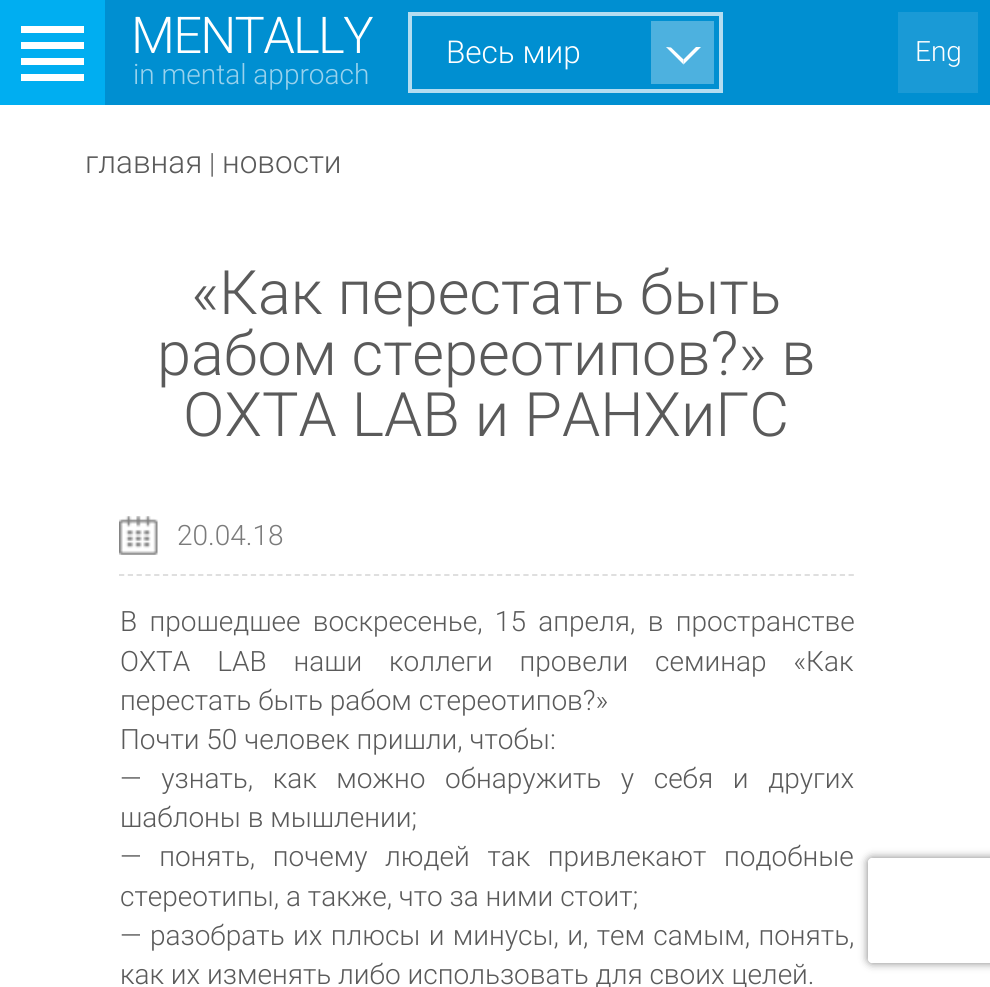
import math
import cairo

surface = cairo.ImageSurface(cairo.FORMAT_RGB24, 990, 987)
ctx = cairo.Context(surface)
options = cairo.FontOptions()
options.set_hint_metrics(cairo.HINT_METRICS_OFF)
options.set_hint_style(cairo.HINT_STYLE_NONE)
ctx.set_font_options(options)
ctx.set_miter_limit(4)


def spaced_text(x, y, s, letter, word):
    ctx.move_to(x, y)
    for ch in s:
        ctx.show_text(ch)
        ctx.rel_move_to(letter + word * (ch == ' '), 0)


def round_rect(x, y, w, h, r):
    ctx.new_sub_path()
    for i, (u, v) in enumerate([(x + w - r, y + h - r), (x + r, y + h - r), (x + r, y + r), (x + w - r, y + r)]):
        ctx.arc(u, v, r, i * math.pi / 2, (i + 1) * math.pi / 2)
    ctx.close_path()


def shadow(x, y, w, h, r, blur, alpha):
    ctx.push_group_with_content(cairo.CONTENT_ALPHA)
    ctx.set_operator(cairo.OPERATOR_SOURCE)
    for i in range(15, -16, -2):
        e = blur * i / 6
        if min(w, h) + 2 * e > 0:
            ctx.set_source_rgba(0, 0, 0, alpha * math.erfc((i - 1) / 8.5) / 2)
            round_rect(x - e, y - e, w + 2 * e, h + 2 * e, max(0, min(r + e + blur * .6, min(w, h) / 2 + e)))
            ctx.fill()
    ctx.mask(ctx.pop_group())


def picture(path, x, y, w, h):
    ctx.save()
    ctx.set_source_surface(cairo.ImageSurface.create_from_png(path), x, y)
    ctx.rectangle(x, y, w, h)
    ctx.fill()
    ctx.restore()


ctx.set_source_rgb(1, 1, 1)
ctx.paint()
ctx.set_source_rgb(0, 0.561, 0.82)
ctx.rectangle(105, 0, 885, 105)
ctx.fill()
ctx.set_source_rgb(0, 0.682, 0.945)
ctx.rectangle(0, 0, 105, 105)
ctx.fill()
ctx.set_source_rgb(1, 1, 1)
ctx.rectangle(21, 26, 63, 7)
ctx.fill()
ctx.rectangle(21, 42, 63, 7)
ctx.fill()
ctx.rectangle(21, 58, 63, 7)
ctx.fill()
ctx.rectangle(21, 74, 63, 7)
ctx.fill()
ctx.select_font_face("Roboto Light")
ctx.set_font_size(50.75)
spaced_text(131, 53, "MENTALLY", -1.75, 0)
ctx.set_font_size(28)
ctx.set_source_rgb(0.6, 0.824, 0.929)
ctx.move_to(133, 84)
ctx.show_text("in mental approach")
ctx.rectangle(410, 14, 311, 77)
ctx.set_source_rgb(0.702, 0.867, 0.945)
ctx.set_line_width(4)
ctx.stroke()
ctx.set_font_size(31.5)
ctx.set_source_rgb(1, 1, 1)
ctx.move_to(446, 63)
ctx.show_text("Весь мир")
ctx.set_source_rgb(0.302, 0.694, 0.875)
ctx.rectangle(651, 21, 63, 63)
ctx.fill()
ctx.set_source_rgb(1, 1, 1)
ctx.new_path()
ctx.move_to(701, 47)
ctx.line_to(683.5, 64.5)
ctx.line_to(683.5, 59.5)
ctx.line_to(696, 47)
ctx.close_path()
ctx.fill()
ctx.new_path()
ctx.move_to(683.5, 64.5)
ctx.line_to(666, 47)
ctx.line_to(671, 47.5)
ctx.line_to(683.5, 59.5)
ctx.close_path()
ctx.fill()
ctx.set_source_rgb(0.102, 0.604, 0.839)
ctx.rectangle(898, 12, 80, 81)
ctx.fill()
ctx.set_font_size(28)
ctx.set_source_rgb(1, 1, 1)
ctx.move_to(915, 61)
ctx.show_text("Eng")
ctx.set_font_size(31.5)
ctx.set_source_rgb(0.353, 0.353, 0.353)
ctx.move_to(85, 173)
ctx.show_text("главная")
ctx.set_font_size(28)
ctx.move_to(209, 173)
ctx.show_text("|")
ctx.set_font_size(31.5)
ctx.move_to(222, 173)
ctx.show_text("новости")
ctx.set_font_size(61.25)
ctx.move_to(191, 314)
ctx.show_text("«Как перестать быть")
ctx.move_to(157, 375)
ctx.show_text("рабом стереотипов?» в")
ctx.move_to(183, 436)
ctx.show_text("ОХТА LAB и РАНХиГС")
ctx.new_path()
ctx.move_to(119, 575)
ctx.line_to(854, 575)
ctx.set_source_rgb(0.859, 0.859, 0.859)
ctx.set_line_width(1.8)
ctx.set_dash([5.25, 3.54])
ctx.stroke()
picture("img1.png", 119, 516, 39, 39)
ctx.set_font_size(28)
ctx.set_source_rgb(0.482, 0.482, 0.482)
ctx.move_to(177, 545)
ctx.show_text("20.04.18")
ctx.set_source_rgb(0.353, 0.353, 0.353)
spaced_text(120, 631, "В прошедшее воскресенье, 15 апреля, в пространстве", 0, 5.5)
spaced_text(120, 671, "ОХТА LAB наши коллеги провели семинар «Как", 0, 20)
ctx.move_to(120, 710)
ctx.show_text("перестать быть рабом стереотипов?»")
ctx.move_to(120, 749)
ctx.show_text("Почти 50 человек пришли, чтобы:")
spaced_text(120, 788, "— узнать, как можно обнаружить у себя и других", 0, 12.75)
ctx.move_to(120, 827)
ctx.show_text("шаблоны в мышлении;")
spaced_text(120, 866, "— понять, почему людей так привлекают подобные", 0, 10.75)
ctx.move_to(120, 906)
ctx.show_text("стереотипы, а также, что за ними стоит;")
spaced_text(120, 945, "— разобрать их плюсы и минусы, и, тем самым, понять,", 0, 1.5)
ctx.move_to(120, 984)
ctx.show_text("как их изменять либо использовать для своих целей.")
ctx.save()
ctx.set_fill_rule(cairo.FILL_RULE_EVEN_ODD)
ctx.new_path()
ctx.move_to(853, 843)
ctx.line_to(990, 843)
ctx.line_to(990, 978)
ctx.line_to(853, 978)
ctx.close_path()
ctx.move_to(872, 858)
ctx.line_to(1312, 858)
ctx.curve_to(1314, 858, 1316, 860, 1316, 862)
ctx.line_to(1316, 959)
ctx.curve_to(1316, 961, 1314, 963, 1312, 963)
ctx.line_to(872, 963)
ctx.curve_to(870, 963, 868, 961, 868, 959)
ctx.line_to(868, 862)
ctx.curve_to(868, 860, 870, 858, 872, 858)
ctx.close_path()
ctx.clip()
ctx.set_source_rgb(0.502, 0.502, 0.502)
shadow(868, 858, 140, 105, 4, 4.5, 1)
ctx.restore()
surface.write_to_png("page.png")
